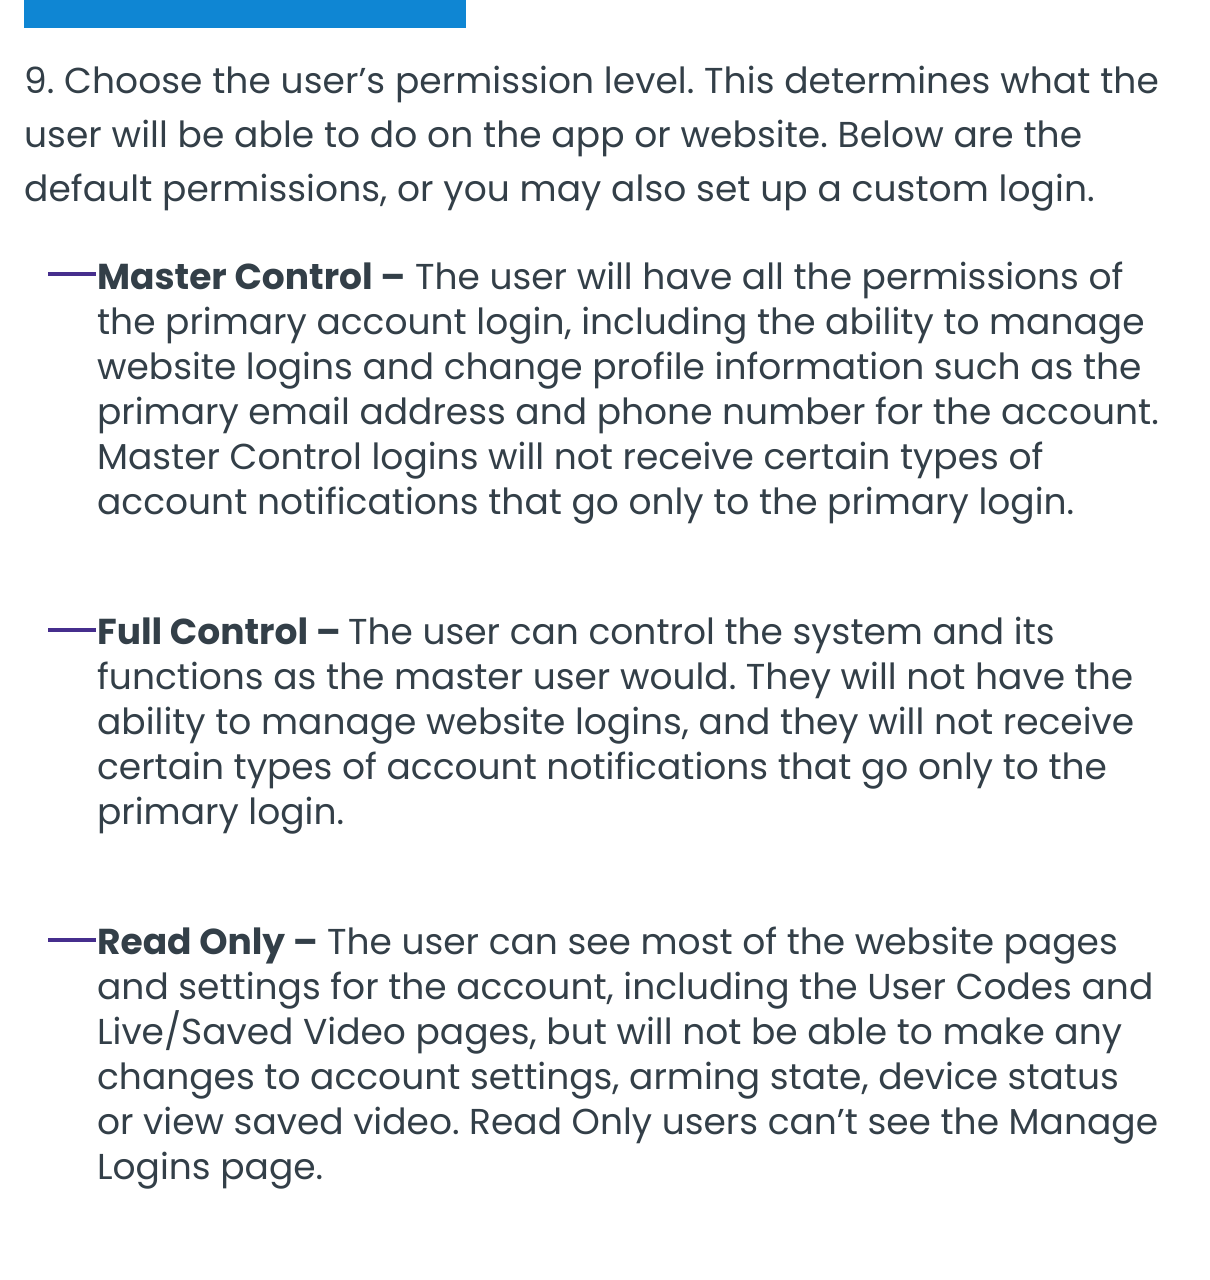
import math
import cairo

surface = cairo.ImageSurface(cairo.FORMAT_RGB24, 1210, 1280)
ctx = cairo.Context(surface)
options = cairo.FontOptions()
options.set_hint_metrics(cairo.HINT_METRICS_OFF)
options.set_hint_style(cairo.HINT_STYLE_NONE)
ctx.set_font_options(options)
ctx.set_miter_limit(4)


def spaced_text(x, y, s, letter, word):
    ctx.move_to(x, y)
    for ch in s:
        ctx.show_text(ch)
        ctx.rel_move_to(letter + word * (ch == ' '), 0)


ctx.set_source_rgb(1, 1, 1)
ctx.paint()
ctx.set_source_rgb(0.059, 0.525, 0.827)
ctx.rectangle(24, 0, 442, 28)
ctx.fill()
ctx.select_font_face("Poppins")
ctx.set_font_size(36)
ctx.set_source_rgb(0.2, 0.247, 0.282)
spaced_text(24, 93, "9. Choose the user’s permission level. This determines what the", 0.07, 0)
spaced_text(24, 147, "user will be able to do on the app or website. Below are the", 0.07, 0)
spaced_text(24, 201, "default permissions, or you may also set up a custom login.", 0.07, 0)
ctx.set_source_rgb(0.275, 0.18, 0.553)
ctx.rectangle(48, 272, 48, 4)
ctx.fill()
ctx.select_font_face("Poppins", cairo.FONT_SLANT_NORMAL, cairo.FONT_WEIGHT_BOLD)
ctx.set_source_rgb(0.2, 0.247, 0.282)
ctx.move_to(97, 289)
ctx.show_text("Master Control –")
ctx.select_font_face("Poppins")
ctx.move_to(415, 289)
ctx.show_text("The user will have all the permissions of")
ctx.move_to(97, 334)
ctx.show_text("the primary account login, including the ability to manage")
ctx.move_to(97, 379)
ctx.show_text("website logins and change profile information such as the")
ctx.move_to(97, 424)
ctx.show_text("primary email address and phone number for the account.")
ctx.move_to(97, 469)
ctx.show_text("Master Control logins will not receive certain types of")
ctx.move_to(97, 514)
ctx.show_text("account notifications that go only to the primary login.")
ctx.set_source_rgb(0.275, 0.18, 0.553)
ctx.rectangle(48, 628, 48, 4)
ctx.fill()
ctx.select_font_face("Poppins", cairo.FONT_SLANT_NORMAL, cairo.FONT_WEIGHT_BOLD)
ctx.set_source_rgb(0.2, 0.247, 0.282)
ctx.move_to(97, 644)
ctx.show_text("Full Control –")
ctx.select_font_face("Poppins")
ctx.move_to(348, 644)
ctx.show_text("The user can control the system and its")
ctx.move_to(97, 689)
ctx.show_text("functions as the master user would. They will not have the")
ctx.move_to(97, 734)
ctx.show_text("ability to manage website logins, and they will not receive")
ctx.move_to(97, 779)
ctx.show_text("certain types of account notifications that go only to the")
ctx.move_to(97, 824)
ctx.show_text("primary login.")
ctx.set_source_rgb(0.275, 0.18, 0.553)
ctx.rectangle(48, 938, 48, 4)
ctx.fill()
ctx.select_font_face("Poppins", cairo.FONT_SLANT_NORMAL, cairo.FONT_WEIGHT_BOLD)
ctx.set_source_rgb(0.2, 0.247, 0.282)
ctx.move_to(97, 954)
ctx.show_text("Read Only –")
ctx.select_font_face("Poppins")
ctx.move_to(327, 954)
ctx.show_text("The user can see most of the website pages")
ctx.move_to(97, 999)
ctx.show_text("and settings for the account, including the User Codes and")
ctx.move_to(97, 1044)
ctx.show_text("Live/Saved Video pages, but will not be able to make any")
ctx.move_to(97, 1089)
ctx.show_text("changes to account settings, arming state, device status")
ctx.move_to(97, 1134)
ctx.show_text("or view saved video. Read Only users can’t see the Manage")
ctx.move_to(97, 1179)
ctx.show_text("Logins page.")
surface.write_to_png("page.png")
